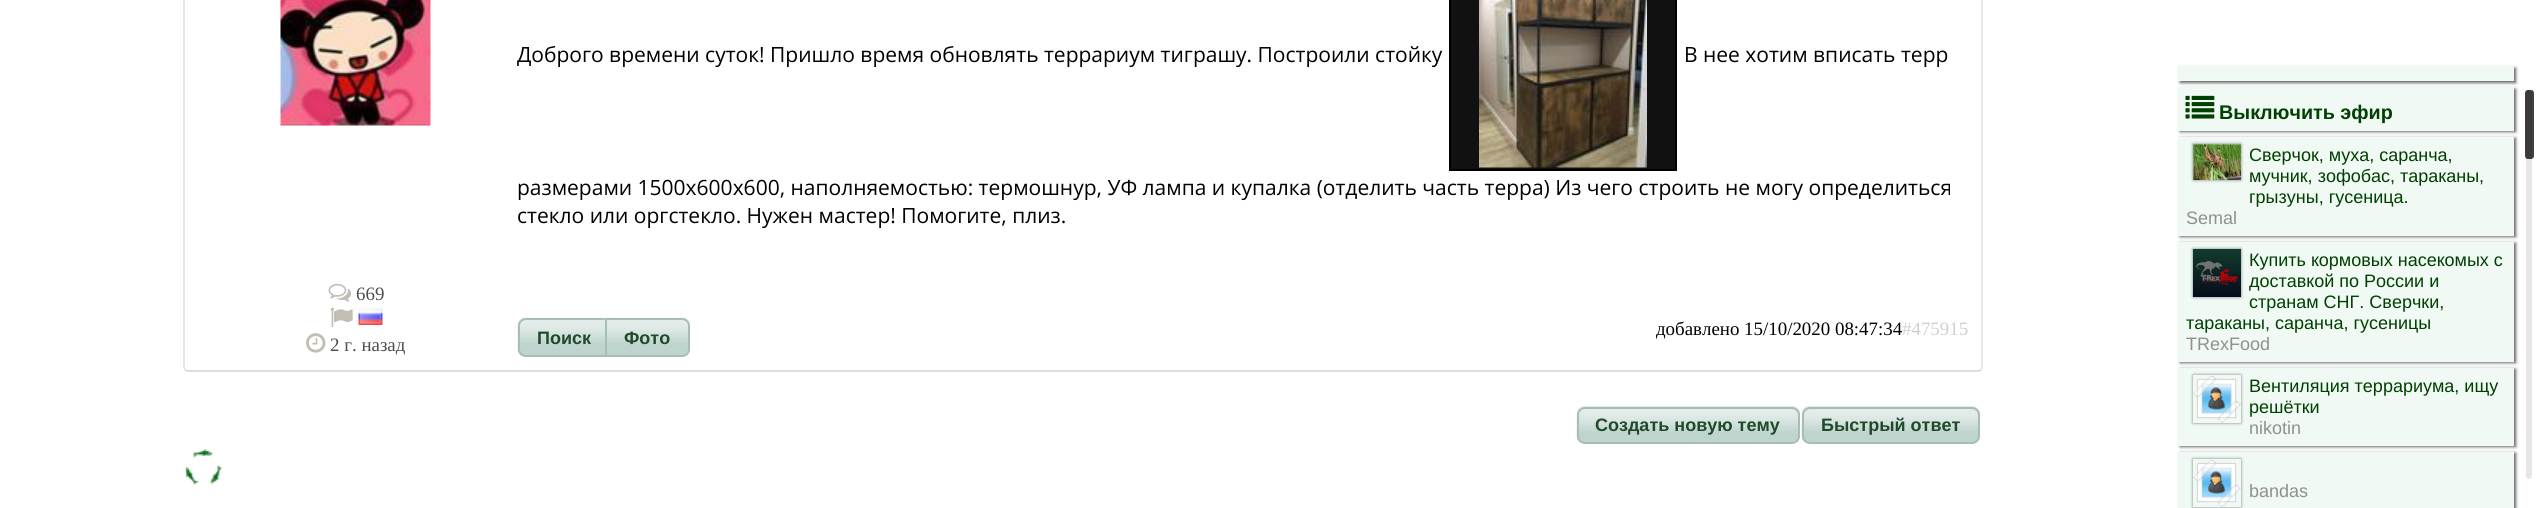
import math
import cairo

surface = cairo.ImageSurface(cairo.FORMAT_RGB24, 2541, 508)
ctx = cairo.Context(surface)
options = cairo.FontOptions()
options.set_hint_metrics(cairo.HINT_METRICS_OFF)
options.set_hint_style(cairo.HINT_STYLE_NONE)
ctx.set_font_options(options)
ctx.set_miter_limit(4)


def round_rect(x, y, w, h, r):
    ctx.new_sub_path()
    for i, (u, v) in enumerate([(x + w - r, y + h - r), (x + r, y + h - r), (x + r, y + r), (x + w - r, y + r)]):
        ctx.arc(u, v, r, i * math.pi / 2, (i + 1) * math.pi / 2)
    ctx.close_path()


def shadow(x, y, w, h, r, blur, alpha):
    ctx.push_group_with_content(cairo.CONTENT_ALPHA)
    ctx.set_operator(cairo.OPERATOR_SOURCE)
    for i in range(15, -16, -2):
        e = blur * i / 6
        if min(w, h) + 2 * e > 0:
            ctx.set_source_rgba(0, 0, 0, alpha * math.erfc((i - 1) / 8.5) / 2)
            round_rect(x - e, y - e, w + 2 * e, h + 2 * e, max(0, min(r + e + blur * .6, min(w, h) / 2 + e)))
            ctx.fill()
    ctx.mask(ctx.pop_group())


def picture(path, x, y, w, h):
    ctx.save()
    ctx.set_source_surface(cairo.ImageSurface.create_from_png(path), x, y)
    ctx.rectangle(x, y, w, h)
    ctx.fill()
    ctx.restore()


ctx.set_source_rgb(1, 1, 1)
ctx.paint()
ctx.new_path()
ctx.move_to(1981, -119.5)
ctx.line_to(1982, -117)
ctx.line_to(1982, 367.5)
ctx.line_to(1981, 370)
ctx.set_source_rgb(0.875, 0.878, 0.894)
ctx.set_line_width(1.5)
ctx.stroke()
ctx.new_path()
ctx.move_to(1981, 370)
ctx.line_to(1978.5, 371)
ctx.line_to(187.5, 371)
ctx.line_to(185, 370)
ctx.set_source_rgb(0.816, 0.82, 0.835)
ctx.stroke()
ctx.new_path()
ctx.move_to(185, 370)
ctx.line_to(184, 367.5)
ctx.line_to(184, -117)
ctx.line_to(185, -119.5)
ctx.set_source_rgb(0.875, 0.878, 0.894)
ctx.stroke()
ctx.select_font_face("Open Sans")
ctx.set_font_size(21)
ctx.set_source_rgb(0, 0, 0)
ctx.move_to(517, 62)
ctx.show_text("Доброго времени суток! Пришло время обновлять террариум тиграшу. Построили стойку")
ctx.set_source_rgb(0.067, 0.067, 0.067)
ctx.rectangle(1450, -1, 226, 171)
ctx.fill_preserve()
ctx.set_source_rgb(0, 0, 0)
ctx.set_line_width(2)
ctx.stroke()
picture("img1.png", 1479, 0, 168, 168)
ctx.move_to(1684, 62)
ctx.show_text("В нее хотим вписать терр")
ctx.move_to(517, 195)
ctx.show_text("размерами 1500х600х600, наполняемостью: термошнур, УФ лампа и купалка (отделить часть терра) Из чего строить не могу определиться")
ctx.move_to(517, 223)
ctx.show_text("стекло или оргстекло. Нужен мастер! Помогите, плиз.")
picture("img2.png", 280, 0, 151, 126)
picture("img3.png", 328, 283, 24, 19)
ctx.select_font_face("Liberation Serif")
ctx.set_font_size(18.9)
ctx.set_source_rgb(0.302, 0.302, 0.302)
ctx.move_to(356, 300)
ctx.show_text("669")
picture("img4.png", 330, 307, 23, 21)
picture("img5.png", 358, 308, 25, 17)
picture("img6.png", 306, 333, 20, 20)
ctx.move_to(330, 351)
ctx.show_text("2 г. назад")
picture("img7.png", 517, 317, 94, 39)
ctx.new_path()
ctx.move_to(526, 319)
ctx.line_to(610, 319)
ctx.line_to(610, 356)
ctx.line_to(526, 356)
ctx.curve_to(522, 356, 519, 353, 519, 349)
ctx.line_to(519, 326)
ctx.curve_to(519, 322, 522, 319, 526, 319)
ctx.close_path()
ctx.set_source_rgb(0.655, 0.749, 0.698)
ctx.stroke()
ctx.select_font_face("Liberation Sans", cairo.FONT_SLANT_NORMAL, cairo.FONT_WEIGHT_BOLD)
ctx.set_font_size(18)
ctx.set_source_rgb(0.129, 0.29, 0.169)
ctx.move_to(537, 344)
ctx.show_text("Поиск")
picture("img8.png", 604, 317, 86, 39)
ctx.new_path()
ctx.move_to(606, 319)
ctx.line_to(682, 319)
ctx.curve_to(686, 319, 689, 322, 689, 326)
ctx.line_to(689, 349)
ctx.curve_to(689, 353, 686, 356, 682, 356)
ctx.line_to(606, 356)
ctx.close_path()
ctx.set_source_rgb(0.655, 0.749, 0.698)
ctx.stroke()
ctx.set_source_rgb(0.129, 0.29, 0.169)
ctx.move_to(624, 344)
ctx.show_text("Фото")
ctx.select_font_face("Liberation Serif")
ctx.set_font_size(18.9)
ctx.set_source_rgb(0, 0, 0)
ctx.move_to(1656, 335)
ctx.show_text("добавлено 15/10/2020 08:47:34")
ctx.set_source_rgb(0.816, 0.816, 0.816)
ctx.move_to(1902, 335)
ctx.show_text("#475915")
ctx.set_source_rgb(0, 0, 0)
shadow(2180, 68, 336, 15, 0, 1.5, 0.6)
ctx.set_source_rgb(0.941, 0.976, 0.953)
ctx.rectangle(2178, 66, 336, 15)
ctx.fill()
ctx.set_source_rgb(0, 0, 0)
shadow(2180, 89, 336, 43, 0, 1.5, 0.6)
ctx.set_source_rgb(0.941, 0.976, 0.953)
ctx.rectangle(2178, 87, 336, 44)
ctx.fill()
picture("img9.png", 2185, 95, 30, 24)
ctx.select_font_face("Liberation Sans", cairo.FONT_SLANT_NORMAL, cairo.FONT_WEIGHT_BOLD)
ctx.set_font_size(19.75)
ctx.set_source_rgb(0, 0.251, 0)
ctx.move_to(2219, 119)
ctx.show_text("Выключить эфир")
ctx.set_source_rgb(0, 0, 0)
shadow(2180, 138, 336, 99, 0, 1.5, 0.6)
ctx.set_source_rgb(0.941, 0.976, 0.953)
ctx.rectangle(2178, 137, 336, 99)
ctx.fill()
ctx.set_source_rgb(0, 0, 0)
shadow(2193, 144, 48, 36, 0, 1.5, 0.5)
picture("img10.png", 2193, 144, 48, 36)
ctx.select_font_face("Liberation Sans")
ctx.set_font_size(18)
ctx.set_source_rgb(0, 0.251, 0)
ctx.move_to(2249, 161)
ctx.show_text("Сверчок, муха, саранча,")
ctx.move_to(2249, 182)
ctx.show_text("мучник, зофобас, тараканы,")
ctx.move_to(2249, 203)
ctx.show_text("грызуны, гусеница.")
ctx.set_source_rgb(0.565, 0.565, 0.565)
ctx.move_to(2186, 224)
ctx.show_text("Semal")
ctx.set_source_rgb(0, 0, 0)
shadow(2180, 243, 336, 120, 0, 1.5, 0.6)
ctx.set_source_rgb(0.941, 0.976, 0.953)
ctx.rectangle(2178, 242, 336, 120)
ctx.fill()
ctx.set_source_rgba(0.945, 0.976, 0.953, 0.5)
ctx.rectangle(2178, 241, 2, 1)
ctx.fill()
ctx.set_source_rgb(0, 0, 0)
shadow(2193, 249, 48, 48, 0, 1.5, 0.5)
picture("img11.png", 2193, 249, 48, 48)
ctx.set_source_rgb(0, 0.251, 0)
ctx.move_to(2249, 266)
ctx.show_text("Купить кормовых насекомых с")
ctx.move_to(2249, 287)
ctx.show_text("доставкой по России и")
ctx.move_to(2249, 308)
ctx.show_text("странам СНГ. Сверчки,")
ctx.move_to(2186, 329)
ctx.show_text("тараканы, саранча, гусеницы")
ctx.set_source_rgb(0.565, 0.565, 0.565)
ctx.move_to(2186, 350)
ctx.show_text("TRexFood")
ctx.set_source_rgb(0, 0, 0)
shadow(2180, 369, 336, 78, 0, 1.5, 0.6)
ctx.set_source_rgb(0.941, 0.976, 0.953)
ctx.rectangle(2178, 368, 336, 78)
ctx.fill()
ctx.set_source_rgba(0.945, 0.976, 0.953, 0.5)
ctx.rectangle(2178, 367, 2, 1)
ctx.fill()
ctx.save()
ctx.set_fill_rule(cairo.FILL_RULE_EVEN_ODD)
ctx.new_path()
ctx.move_to(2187, 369)
ctx.line_to(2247, 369)
ctx.line_to(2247, 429)
ctx.line_to(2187, 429)
ctx.close_path()
ctx.move_to(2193, 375)
ctx.line_to(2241, 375)
ctx.line_to(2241, 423)
ctx.line_to(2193, 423)
ctx.close_path()
ctx.clip()
ctx.set_source_rgb(0, 0, 0)
shadow(2193, 375, 48, 48, 0, 1.5, 0.5)
ctx.restore()
picture("img12.png", 2193, 376, 48, 47)
ctx.set_source_rgb(0, 0.251, 0)
ctx.move_to(2249, 392)
ctx.show_text("Вентиляция террариума, ищу")
ctx.move_to(2249, 413)
ctx.show_text("решётки")
ctx.set_source_rgb(0.565, 0.565, 0.565)
ctx.move_to(2249, 434)
ctx.show_text("nikotin")
ctx.set_source_rgb(0, 0, 0)
shadow(2180, 453, 336, 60, 0, 1.5, 0.6)
ctx.set_source_rgb(0.941, 0.976, 0.953)
ctx.rectangle(2178, 452, 336, 56)
ctx.fill()
ctx.set_source_rgba(0.945, 0.976, 0.953, 0.5)
ctx.rectangle(2178, 451, 2, 1)
ctx.fill()
ctx.save()
ctx.set_fill_rule(cairo.FILL_RULE_EVEN_ODD)
ctx.new_path()
ctx.move_to(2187, 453)
ctx.line_to(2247, 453)
ctx.line_to(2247, 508)
ctx.line_to(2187, 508)
ctx.close_path()
ctx.move_to(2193, 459)
ctx.line_to(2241, 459)
ctx.line_to(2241, 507)
ctx.line_to(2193, 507)
ctx.close_path()
ctx.clip()
ctx.set_source_rgb(0, 0, 0)
shadow(2193, 459, 48, 48, 0, 1.5, 0.5)
ctx.restore()
picture("img12.png", 2193, 460, 48, 47)
ctx.set_source_rgb(0.565, 0.565, 0.565)
ctx.move_to(2249, 497)
ctx.show_text("bandas")
ctx.set_source_rgb(0.902, 0.902, 0.902)
round_rect(2526, 90, 6, 389, 3)
ctx.fill()
ctx.set_source_rgba(0, 0, 0, 0.75)
round_rect(2525, 90, 9, 69, 3)
ctx.fill()
picture("img13.png", 1576, 406, 224, 37)
round_rect(1578, 408, 221, 35, 7)
ctx.set_source_rgb(0.655, 0.749, 0.698)
ctx.stroke()
ctx.select_font_face("Liberation Sans", cairo.FONT_SLANT_NORMAL, cairo.FONT_WEIGHT_BOLD)
ctx.set_source_rgb(0.129, 0.29, 0.169)
ctx.move_to(1595, 431)
ctx.show_text("Создать новую тему")
picture("img14.png", 1801, 406, 179, 37)
round_rect(1803, 408, 176, 35, 7)
ctx.set_source_rgb(0.655, 0.749, 0.698)
ctx.stroke()
ctx.set_source_rgb(0.129, 0.29, 0.169)
ctx.move_to(1821, 431)
ctx.show_text("Быстрый ответ")
picture("img15.png", 184, 449, 38, 36)
surface.write_to_png("page.png")
